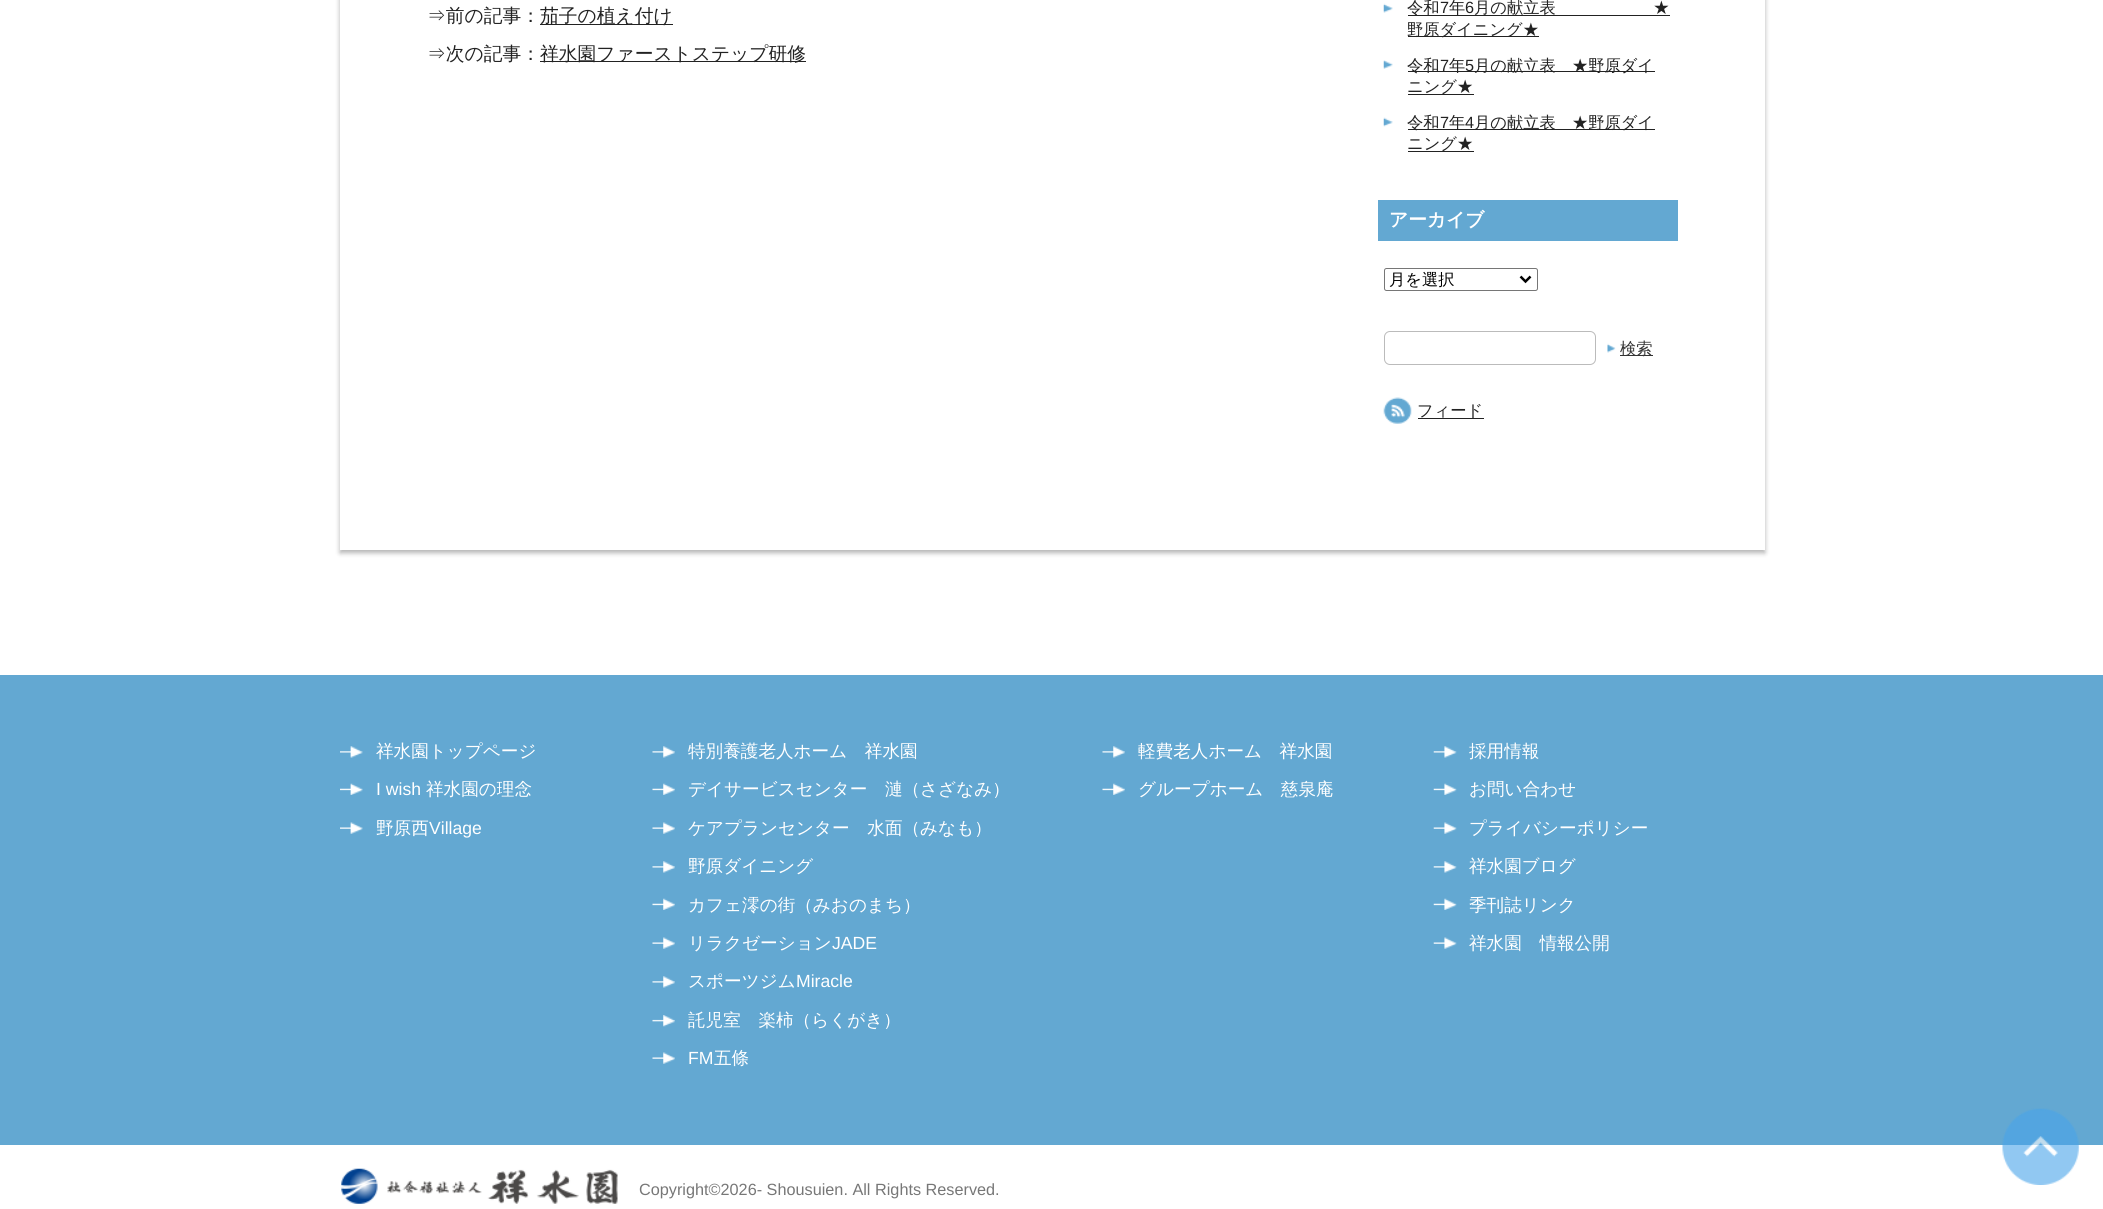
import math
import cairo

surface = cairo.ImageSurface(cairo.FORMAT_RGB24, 2103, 1209)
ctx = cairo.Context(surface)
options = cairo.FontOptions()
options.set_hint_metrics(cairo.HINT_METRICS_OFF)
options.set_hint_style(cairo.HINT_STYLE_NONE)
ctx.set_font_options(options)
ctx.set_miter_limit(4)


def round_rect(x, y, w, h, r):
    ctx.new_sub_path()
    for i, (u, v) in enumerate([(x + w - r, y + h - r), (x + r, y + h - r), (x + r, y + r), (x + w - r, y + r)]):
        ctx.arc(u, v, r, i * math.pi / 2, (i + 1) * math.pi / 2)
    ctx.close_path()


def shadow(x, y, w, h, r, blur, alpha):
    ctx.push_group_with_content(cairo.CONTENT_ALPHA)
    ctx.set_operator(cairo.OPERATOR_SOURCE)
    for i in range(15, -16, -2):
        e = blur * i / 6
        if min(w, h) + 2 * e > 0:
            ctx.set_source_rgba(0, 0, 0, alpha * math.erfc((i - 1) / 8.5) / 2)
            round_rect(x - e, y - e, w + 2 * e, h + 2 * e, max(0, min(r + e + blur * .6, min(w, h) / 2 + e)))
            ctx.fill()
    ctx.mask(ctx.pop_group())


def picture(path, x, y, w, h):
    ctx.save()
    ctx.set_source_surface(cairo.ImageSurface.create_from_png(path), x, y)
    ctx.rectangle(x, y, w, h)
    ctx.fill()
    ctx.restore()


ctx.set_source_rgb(1, 1, 1)
ctx.paint()
ctx.save()
ctx.set_fill_rule(cairo.FILL_RULE_EVEN_ODD)
ctx.new_path()
ctx.move_to(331, 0)
ctx.line_to(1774, 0)
ctx.line_to(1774, 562)
ctx.line_to(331, 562)
ctx.close_path()
ctx.move_to(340, -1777)
ctx.line_to(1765, -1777)
ctx.line_to(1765, 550)
ctx.line_to(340, 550)
ctx.close_path()
ctx.clip()
ctx.set_source_rgb(0, 0, 0)
shadow(340, -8, 1425, 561, 0, 2.5, 0.3)
ctx.restore()
ctx.select_font_face("WenQuanYi Zen Hei Medium")
ctx.set_font_size(18.75)
ctx.set_source_rgb(0.133, 0.133, 0.133)
ctx.move_to(427, 22)
ctx.show_text("⇒前の記事：")
ctx.rectangle(540, 24, 133, 1)
ctx.fill()
ctx.move_to(540, 22)
ctx.show_text("茄子の植え付け")
ctx.move_to(427, 60)
ctx.show_text("⇒次の記事：")
ctx.rectangle(540, 61, 266, 1)
ctx.fill()
ctx.move_to(540, 60)
ctx.show_text("祥水園ファーストステップ研修")
picture("img1.png", 1383, 3, 10, 10)
ctx.rectangle(1408, 15, 262, 1)
ctx.fill()
ctx.set_font_size(16.25)
ctx.move_to(1407, 13)
ctx.show_text("令和")
ctx.select_font_face("Liberation Sans")
ctx.move_to(1440, 13)
ctx.show_text("7")
ctx.select_font_face("WenQuanYi Zen Hei Medium")
ctx.move_to(1449, 13)
ctx.show_text("年")
ctx.select_font_face("Liberation Sans")
ctx.move_to(1465, 13)
ctx.show_text("6")
ctx.select_font_face("WenQuanYi Zen Hei Medium")
ctx.move_to(1474, 13)
ctx.show_text("月の献立表　　　　　　★")
ctx.rectangle(1408, 36, 131, 1)
ctx.fill()
ctx.move_to(1407, 35)
ctx.show_text("野原ダイニング★")
picture("img2.png", 1383, 60, 10, 9)
ctx.rectangle(1408, 71, 247, 1)
ctx.fill()
ctx.move_to(1407, 71)
ctx.show_text("令和")
ctx.select_font_face("Liberation Sans")
ctx.move_to(1440, 71)
ctx.show_text("7")
ctx.select_font_face("WenQuanYi Zen Hei Medium")
ctx.move_to(1449, 71)
ctx.show_text("年")
ctx.select_font_face("Liberation Sans")
ctx.move_to(1465, 71)
ctx.show_text("5")
ctx.select_font_face("WenQuanYi Zen Hei Medium")
ctx.move_to(1474, 71)
ctx.show_text("月の献立表　★野原ダイ")
ctx.rectangle(1408, 94, 66, 1)
ctx.fill()
ctx.move_to(1407, 92)
ctx.show_text("ニング★")
picture("img3.png", 1383, 117, 10, 10)
ctx.rectangle(1408, 129, 247, 1)
ctx.fill()
ctx.move_to(1407, 128)
ctx.show_text("令和")
ctx.select_font_face("Liberation Sans")
ctx.move_to(1440, 128)
ctx.show_text("7")
ctx.select_font_face("WenQuanYi Zen Hei Medium")
ctx.move_to(1449, 128)
ctx.show_text("年")
ctx.select_font_face("Liberation Sans")
ctx.move_to(1465, 128)
ctx.show_text("4")
ctx.select_font_face("WenQuanYi Zen Hei Medium")
ctx.move_to(1474, 128)
ctx.show_text("月の献立表　★野原ダイ")
ctx.rectangle(1408, 151, 66, 1)
ctx.fill()
ctx.move_to(1407, 149)
ctx.show_text("ニング★")
ctx.set_source_rgb(0.388, 0.659, 0.824)
ctx.rectangle(1378, 200, 300, 41)
ctx.fill()
ctx.select_font_face("WenQuanYi Zen Hei", cairo.FONT_SLANT_NORMAL, cairo.FONT_WEIGHT_BOLD)
ctx.set_font_size(18.75)
ctx.set_source_rgb(1, 1, 1)
ctx.move_to(1389, 226)
ctx.show_text("アーカイブ")
round_rect(1384.5, 268.5, 153, 22, 2)
ctx.set_source_rgb(0.463, 0.463, 0.463)
ctx.set_line_width(1)
ctx.stroke()
ctx.new_path()
ctx.move_to(1520.5, 276.5)
ctx.line_to(1525.5, 281.5)
ctx.line_to(1530.5, 276.5)
ctx.set_source_rgb(0, 0, 0)
ctx.set_line_width(2.5)
ctx.stroke()
ctx.select_font_face("WenQuanYi Zen Hei Medium")
ctx.set_font_size(16.25)
ctx.move_to(1389, 285)
ctx.show_text("月を選択")
round_rect(1384.5, 331.5, 211, 33, 5.5)
ctx.set_source_rgb(0.733, 0.733, 0.733)
ctx.set_line_width(1)
ctx.stroke()
picture("img4.png", 1607, 343, 9, 10)
ctx.set_source_rgb(0.2, 0.2, 0.2)
ctx.rectangle(1620, 355, 33, 1)
ctx.fill()
ctx.move_to(1620, 354)
ctx.show_text("検索")
picture("img5.png", 1383, 397, 29, 27)
ctx.set_source_rgb(0.133, 0.133, 0.133)
ctx.rectangle(1418, 418, 66, 1)
ctx.fill()
ctx.move_to(1417, 416)
ctx.show_text("フィード")
ctx.set_source_rgb(0.388, 0.659, 0.824)
ctx.rectangle(0, 675, 2103, 470)
ctx.fill()
picture("img6.png", 340, 746, 23, 12)
ctx.set_font_size(17.6)
ctx.set_source_rgb(1, 1, 1)
ctx.move_to(376, 757)
ctx.show_text("祥水園トップページ")
picture("img7.png", 340, 783, 23, 12)
ctx.select_font_face("Liberation Sans")
ctx.move_to(376, 795)
ctx.show_text("I wish")
ctx.select_font_face("WenQuanYi Zen Hei Medium")
ctx.move_to(426, 795)
ctx.show_text("祥水園の理念")
picture("img8.png", 340, 822, 23, 12)
ctx.move_to(376, 834)
ctx.show_text("野原西")
ctx.select_font_face("Liberation Sans")
ctx.move_to(429, 834)
ctx.show_text("Village")
picture("img9.png", 652, 746, 23, 12)
ctx.select_font_face("WenQuanYi Zen Hei Medium")
ctx.move_to(688, 757)
ctx.show_text("特別養護老人ホーム　祥水園")
picture("img10.png", 652, 783, 23, 12)
ctx.move_to(688, 795)
ctx.show_text("デイサービスセンター　漣（さざなみ）")
picture("img11.png", 652, 822, 23, 12)
ctx.move_to(688, 834)
ctx.show_text("ケアプランセンター　水面（みなも）")
picture("img9.png", 652, 861, 23, 12)
ctx.move_to(688, 872)
ctx.show_text("野原ダイニング")
picture("img10.png", 652, 898, 23, 12)
ctx.move_to(688, 911)
ctx.show_text("カフェ澪の街（みおのまち）")
picture("img11.png", 652, 937, 23, 12)
ctx.move_to(688, 949)
ctx.show_text("リラクゼーション")
ctx.select_font_face("Liberation Sans")
ctx.move_to(832, 949)
ctx.show_text("JADE")
picture("img9.png", 652, 976, 23, 12)
ctx.select_font_face("WenQuanYi Zen Hei Medium")
ctx.move_to(688, 987)
ctx.show_text("スポーツジム")
ctx.select_font_face("Liberation Sans")
ctx.move_to(796, 987)
ctx.show_text("Miracle")
picture("img12.png", 652, 1015, 23, 12)
ctx.select_font_face("WenQuanYi Zen Hei Medium")
ctx.move_to(688, 1026)
ctx.show_text("託児室　楽柿（らくがき）")
picture("img11.png", 652, 1052, 23, 12)
ctx.select_font_face("Liberation Sans")
ctx.move_to(688, 1064)
ctx.show_text("FM")
ctx.select_font_face("WenQuanYi Zen Hei Medium")
ctx.move_to(714, 1064)
ctx.show_text("五條")
picture("img9.png", 1102, 746, 23, 12)
ctx.move_to(1138, 757)
ctx.show_text("軽費老人ホーム　祥水園")
picture("img10.png", 1102, 783, 23, 12)
ctx.move_to(1138, 795)
ctx.show_text("グループホーム　慈泉庵")
picture("img13.png", 1433, 746, 24, 12)
ctx.move_to(1469, 757)
ctx.show_text("採用情報")
picture("img14.png", 1433, 783, 24, 12)
ctx.move_to(1469, 795)
ctx.show_text("お問い合わせ")
picture("img15.png", 1433, 822, 24, 12)
ctx.move_to(1469, 834)
ctx.show_text("プライバシーポリシー")
picture("img13.png", 1433, 861, 24, 12)
ctx.move_to(1469, 872)
ctx.show_text("祥水園ブログ")
picture("img14.png", 1433, 898, 24, 12)
ctx.move_to(1469, 911)
ctx.show_text("季刊誌リンク")
picture("img15.png", 1433, 937, 24, 12)
ctx.move_to(1469, 949)
ctx.show_text("祥水園　情報公開")
picture("img16.png", 2002, 1108, 77, 77)
picture("img17.png", 341, 1168, 277, 36)
ctx.select_font_face("Liberation Sans")
ctx.set_font_size(16.25)
ctx.set_source_rgb(0.467, 0.467, 0.467)
ctx.move_to(639, 1195)
ctx.show_text("Copyright©2026- Shousuien. All Rights Reserved.")
surface.write_to_png("page.png")
